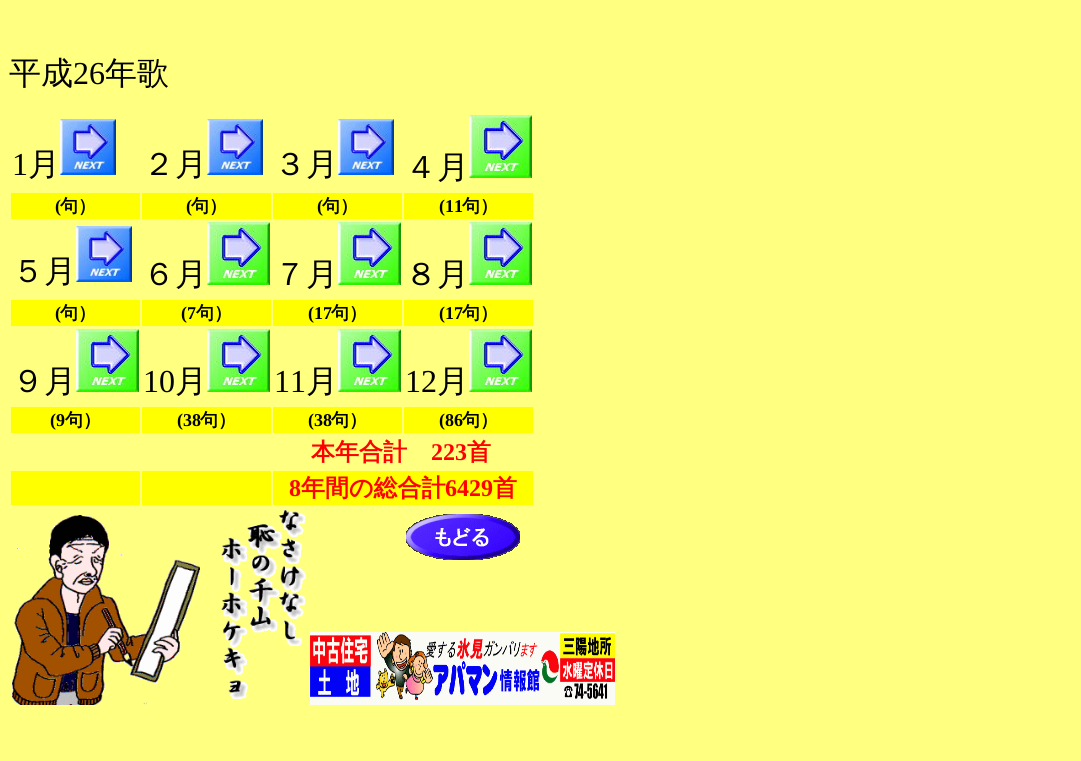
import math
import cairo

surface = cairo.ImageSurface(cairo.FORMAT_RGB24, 1081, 761)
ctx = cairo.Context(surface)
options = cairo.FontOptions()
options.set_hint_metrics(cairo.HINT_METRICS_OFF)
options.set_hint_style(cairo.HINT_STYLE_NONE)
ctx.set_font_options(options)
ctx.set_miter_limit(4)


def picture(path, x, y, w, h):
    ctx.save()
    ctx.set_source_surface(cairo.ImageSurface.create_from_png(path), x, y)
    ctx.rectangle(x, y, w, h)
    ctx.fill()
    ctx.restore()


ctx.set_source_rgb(1, 1, 0.502)
ctx.paint()
ctx.select_font_face("WenQuanYi Zen Hei Medium")
ctx.set_font_size(32)
ctx.set_source_rgb(0, 0, 0)
ctx.move_to(9, 84)
ctx.show_text("平成")
ctx.select_font_face("Liberation Serif")
ctx.move_to(73, 84)
ctx.show_text("26")
ctx.select_font_face("WenQuanYi Zen Hei Medium")
ctx.move_to(105, 84)
ctx.show_text("年歌")
ctx.select_font_face("Liberation Serif")
ctx.move_to(12, 175)
ctx.show_text("1")
ctx.select_font_face("WenQuanYi Zen Hei Medium")
ctx.move_to(28, 175)
ctx.show_text("月")
picture("img1.png", 60, 119, 56, 56)
ctx.move_to(143, 175)
ctx.show_text("２月")
picture("img1.png", 207, 119, 56, 56)
ctx.move_to(274, 175)
ctx.show_text("３月")
picture("img1.png", 338, 119, 56, 56)
ctx.move_to(405, 178)
ctx.show_text("４月")
picture("img2.png", 469, 115, 63, 63)
ctx.set_source_rgb(1, 1, 0)
ctx.rectangle(11, 193, 129, 26)
ctx.fill()
ctx.select_font_face("Liberation Serif", cairo.FONT_SLANT_NORMAL, cairo.FONT_WEIGHT_BOLD)
ctx.set_font_size(18)
ctx.set_source_rgb(0, 0, 0)
ctx.move_to(55, 212)
ctx.show_text("(")
ctx.select_font_face("WenQuanYi Zen Hei", cairo.FONT_SLANT_NORMAL, cairo.FONT_WEIGHT_BOLD)
ctx.move_to(60, 212)
ctx.show_text("句）")
ctx.set_source_rgb(1, 1, 0)
ctx.rectangle(142, 193, 129, 26)
ctx.fill()
ctx.select_font_face("Liberation Serif", cairo.FONT_SLANT_NORMAL, cairo.FONT_WEIGHT_BOLD)
ctx.set_source_rgb(0, 0, 0)
ctx.move_to(186, 212)
ctx.show_text("(")
ctx.select_font_face("WenQuanYi Zen Hei", cairo.FONT_SLANT_NORMAL, cairo.FONT_WEIGHT_BOLD)
ctx.move_to(191, 212)
ctx.show_text("句）")
ctx.set_source_rgb(1, 1, 0)
ctx.rectangle(273, 193, 129, 26)
ctx.fill()
ctx.select_font_face("Liberation Serif", cairo.FONT_SLANT_NORMAL, cairo.FONT_WEIGHT_BOLD)
ctx.set_source_rgb(0, 0, 0)
ctx.move_to(317, 212)
ctx.show_text("(")
ctx.select_font_face("WenQuanYi Zen Hei", cairo.FONT_SLANT_NORMAL, cairo.FONT_WEIGHT_BOLD)
ctx.move_to(322, 212)
ctx.show_text("句）")
ctx.set_source_rgb(1, 1, 0)
ctx.rectangle(404, 193, 129, 26)
ctx.fill()
ctx.select_font_face("Liberation Serif", cairo.FONT_SLANT_NORMAL, cairo.FONT_WEIGHT_BOLD)
ctx.set_source_rgb(0, 0, 0)
ctx.move_to(439, 212)
ctx.show_text("(11")
ctx.select_font_face("WenQuanYi Zen Hei", cairo.FONT_SLANT_NORMAL, cairo.FONT_WEIGHT_BOLD)
ctx.move_to(462, 212)
ctx.show_text("句）")
ctx.select_font_face("WenQuanYi Zen Hei Medium")
ctx.set_font_size(32)
ctx.move_to(12, 282)
ctx.show_text("５月")
picture("img1.png", 76, 226, 56, 56)
ctx.move_to(143, 285)
ctx.show_text("６月")
picture("img2.png", 207, 222, 63, 63)
ctx.move_to(274, 285)
ctx.show_text("７月")
picture("img2.png", 338, 222, 63, 63)
ctx.move_to(405, 285)
ctx.show_text("８月")
picture("img2.png", 469, 222, 63, 63)
ctx.set_source_rgb(1, 1, 0)
ctx.rectangle(11, 300, 129, 26)
ctx.fill()
ctx.select_font_face("Liberation Serif", cairo.FONT_SLANT_NORMAL, cairo.FONT_WEIGHT_BOLD)
ctx.set_font_size(18)
ctx.set_source_rgb(0, 0, 0)
ctx.move_to(55, 319)
ctx.show_text("(")
ctx.select_font_face("WenQuanYi Zen Hei", cairo.FONT_SLANT_NORMAL, cairo.FONT_WEIGHT_BOLD)
ctx.move_to(60, 319)
ctx.show_text("句）")
ctx.set_source_rgb(1, 1, 0)
ctx.rectangle(142, 300, 129, 26)
ctx.fill()
ctx.select_font_face("Liberation Serif", cairo.FONT_SLANT_NORMAL, cairo.FONT_WEIGHT_BOLD)
ctx.set_source_rgb(0, 0, 0)
ctx.move_to(181, 319)
ctx.show_text("(7")
ctx.select_font_face("WenQuanYi Zen Hei", cairo.FONT_SLANT_NORMAL, cairo.FONT_WEIGHT_BOLD)
ctx.move_to(196, 319)
ctx.show_text("句）")
ctx.set_source_rgb(1, 1, 0)
ctx.rectangle(273, 300, 129, 26)
ctx.fill()
ctx.select_font_face("Liberation Serif", cairo.FONT_SLANT_NORMAL, cairo.FONT_WEIGHT_BOLD)
ctx.set_source_rgb(0, 0, 0)
ctx.move_to(308, 319)
ctx.show_text("(17")
ctx.select_font_face("WenQuanYi Zen Hei", cairo.FONT_SLANT_NORMAL, cairo.FONT_WEIGHT_BOLD)
ctx.move_to(331, 319)
ctx.show_text("句）")
ctx.set_source_rgb(1, 1, 0)
ctx.rectangle(404, 300, 129, 26)
ctx.fill()
ctx.select_font_face("Liberation Serif", cairo.FONT_SLANT_NORMAL, cairo.FONT_WEIGHT_BOLD)
ctx.set_source_rgb(0, 0, 0)
ctx.move_to(439, 319)
ctx.show_text("(17")
ctx.select_font_face("WenQuanYi Zen Hei", cairo.FONT_SLANT_NORMAL, cairo.FONT_WEIGHT_BOLD)
ctx.move_to(462, 319)
ctx.show_text("句）")
ctx.select_font_face("WenQuanYi Zen Hei Medium")
ctx.set_font_size(32)
ctx.move_to(12, 392)
ctx.show_text("９月")
picture("img2.png", 76, 329, 63, 63)
ctx.select_font_face("Liberation Serif")
ctx.move_to(143, 392)
ctx.show_text("10")
ctx.select_font_face("WenQuanYi Zen Hei Medium")
ctx.move_to(175, 392)
ctx.show_text("月")
picture("img2.png", 207, 329, 63, 63)
ctx.select_font_face("Liberation Serif")
ctx.move_to(274, 392)
ctx.show_text("11")
ctx.select_font_face("WenQuanYi Zen Hei Medium")
ctx.move_to(306, 392)
ctx.show_text("月")
picture("img2.png", 338, 329, 63, 63)
ctx.select_font_face("Liberation Serif")
ctx.move_to(405, 392)
ctx.show_text("12")
ctx.select_font_face("WenQuanYi Zen Hei Medium")
ctx.move_to(437, 392)
ctx.show_text("月")
picture("img2.png", 469, 329, 63, 63)
ctx.set_source_rgb(1, 1, 0)
ctx.rectangle(11, 407, 129, 26)
ctx.fill()
ctx.select_font_face("Liberation Serif", cairo.FONT_SLANT_NORMAL, cairo.FONT_WEIGHT_BOLD)
ctx.set_font_size(18)
ctx.set_source_rgb(0, 0, 0)
ctx.move_to(50, 426)
ctx.show_text("(9")
ctx.select_font_face("WenQuanYi Zen Hei", cairo.FONT_SLANT_NORMAL, cairo.FONT_WEIGHT_BOLD)
ctx.move_to(65, 426)
ctx.show_text("句）")
ctx.set_source_rgb(1, 1, 0)
ctx.rectangle(142, 407, 129, 26)
ctx.fill()
ctx.select_font_face("Liberation Serif", cairo.FONT_SLANT_NORMAL, cairo.FONT_WEIGHT_BOLD)
ctx.set_source_rgb(0, 0, 0)
ctx.move_to(177, 426)
ctx.show_text("(38")
ctx.select_font_face("WenQuanYi Zen Hei", cairo.FONT_SLANT_NORMAL, cairo.FONT_WEIGHT_BOLD)
ctx.move_to(200, 426)
ctx.show_text("句）")
ctx.set_source_rgb(1, 1, 0)
ctx.rectangle(273, 407, 129, 26)
ctx.fill()
ctx.select_font_face("Liberation Serif", cairo.FONT_SLANT_NORMAL, cairo.FONT_WEIGHT_BOLD)
ctx.set_source_rgb(0, 0, 0)
ctx.move_to(308, 426)
ctx.show_text("(38")
ctx.select_font_face("WenQuanYi Zen Hei", cairo.FONT_SLANT_NORMAL, cairo.FONT_WEIGHT_BOLD)
ctx.move_to(331, 426)
ctx.show_text("句）")
ctx.set_source_rgb(1, 1, 0)
ctx.rectangle(404, 407, 129, 26)
ctx.fill()
ctx.select_font_face("Liberation Serif", cairo.FONT_SLANT_NORMAL, cairo.FONT_WEIGHT_BOLD)
ctx.set_source_rgb(0, 0, 0)
ctx.move_to(439, 426)
ctx.show_text("(86")
ctx.select_font_face("WenQuanYi Zen Hei", cairo.FONT_SLANT_NORMAL, cairo.FONT_WEIGHT_BOLD)
ctx.move_to(462, 426)
ctx.show_text("句）")
ctx.set_font_size(24)
ctx.set_source_rgb(1, 0, 0)
ctx.move_to(311, 460)
ctx.show_text("本年合計")
ctx.select_font_face("Liberation Serif", cairo.FONT_SLANT_NORMAL, cairo.FONT_WEIGHT_BOLD)
ctx.move_to(431, 460)
ctx.show_text("223")
ctx.select_font_face("WenQuanYi Zen Hei", cairo.FONT_SLANT_NORMAL, cairo.FONT_WEIGHT_BOLD)
ctx.move_to(467, 460)
ctx.show_text("首")
ctx.set_source_rgb(1, 1, 0)
ctx.rectangle(11, 471, 129, 34)
ctx.fill()
ctx.rectangle(142, 471, 129, 34)
ctx.fill()
ctx.rectangle(273, 471, 260, 34)
ctx.fill()
ctx.select_font_face("Liberation Serif", cairo.FONT_SLANT_NORMAL, cairo.FONT_WEIGHT_BOLD)
ctx.set_source_rgb(1, 0, 0)
ctx.move_to(289, 496)
ctx.show_text("8")
ctx.select_font_face("WenQuanYi Zen Hei", cairo.FONT_SLANT_NORMAL, cairo.FONT_WEIGHT_BOLD)
ctx.move_to(301, 496)
ctx.show_text("年間の総合計")
ctx.select_font_face("Liberation Serif", cairo.FONT_SLANT_NORMAL, cairo.FONT_WEIGHT_BOLD)
ctx.move_to(445, 496)
ctx.show_text("6429")
ctx.select_font_face("WenQuanYi Zen Hei", cairo.FONT_SLANT_NORMAL, cairo.FONT_WEIGHT_BOLD)
ctx.move_to(493, 496)
ctx.show_text("首")
picture("img3.png", 12, 510, 294, 195)
picture("img4.png", 406, 514, 114, 46)
picture("img5.png", 310, 632, 305, 73)
surface.write_to_png("page.png")
